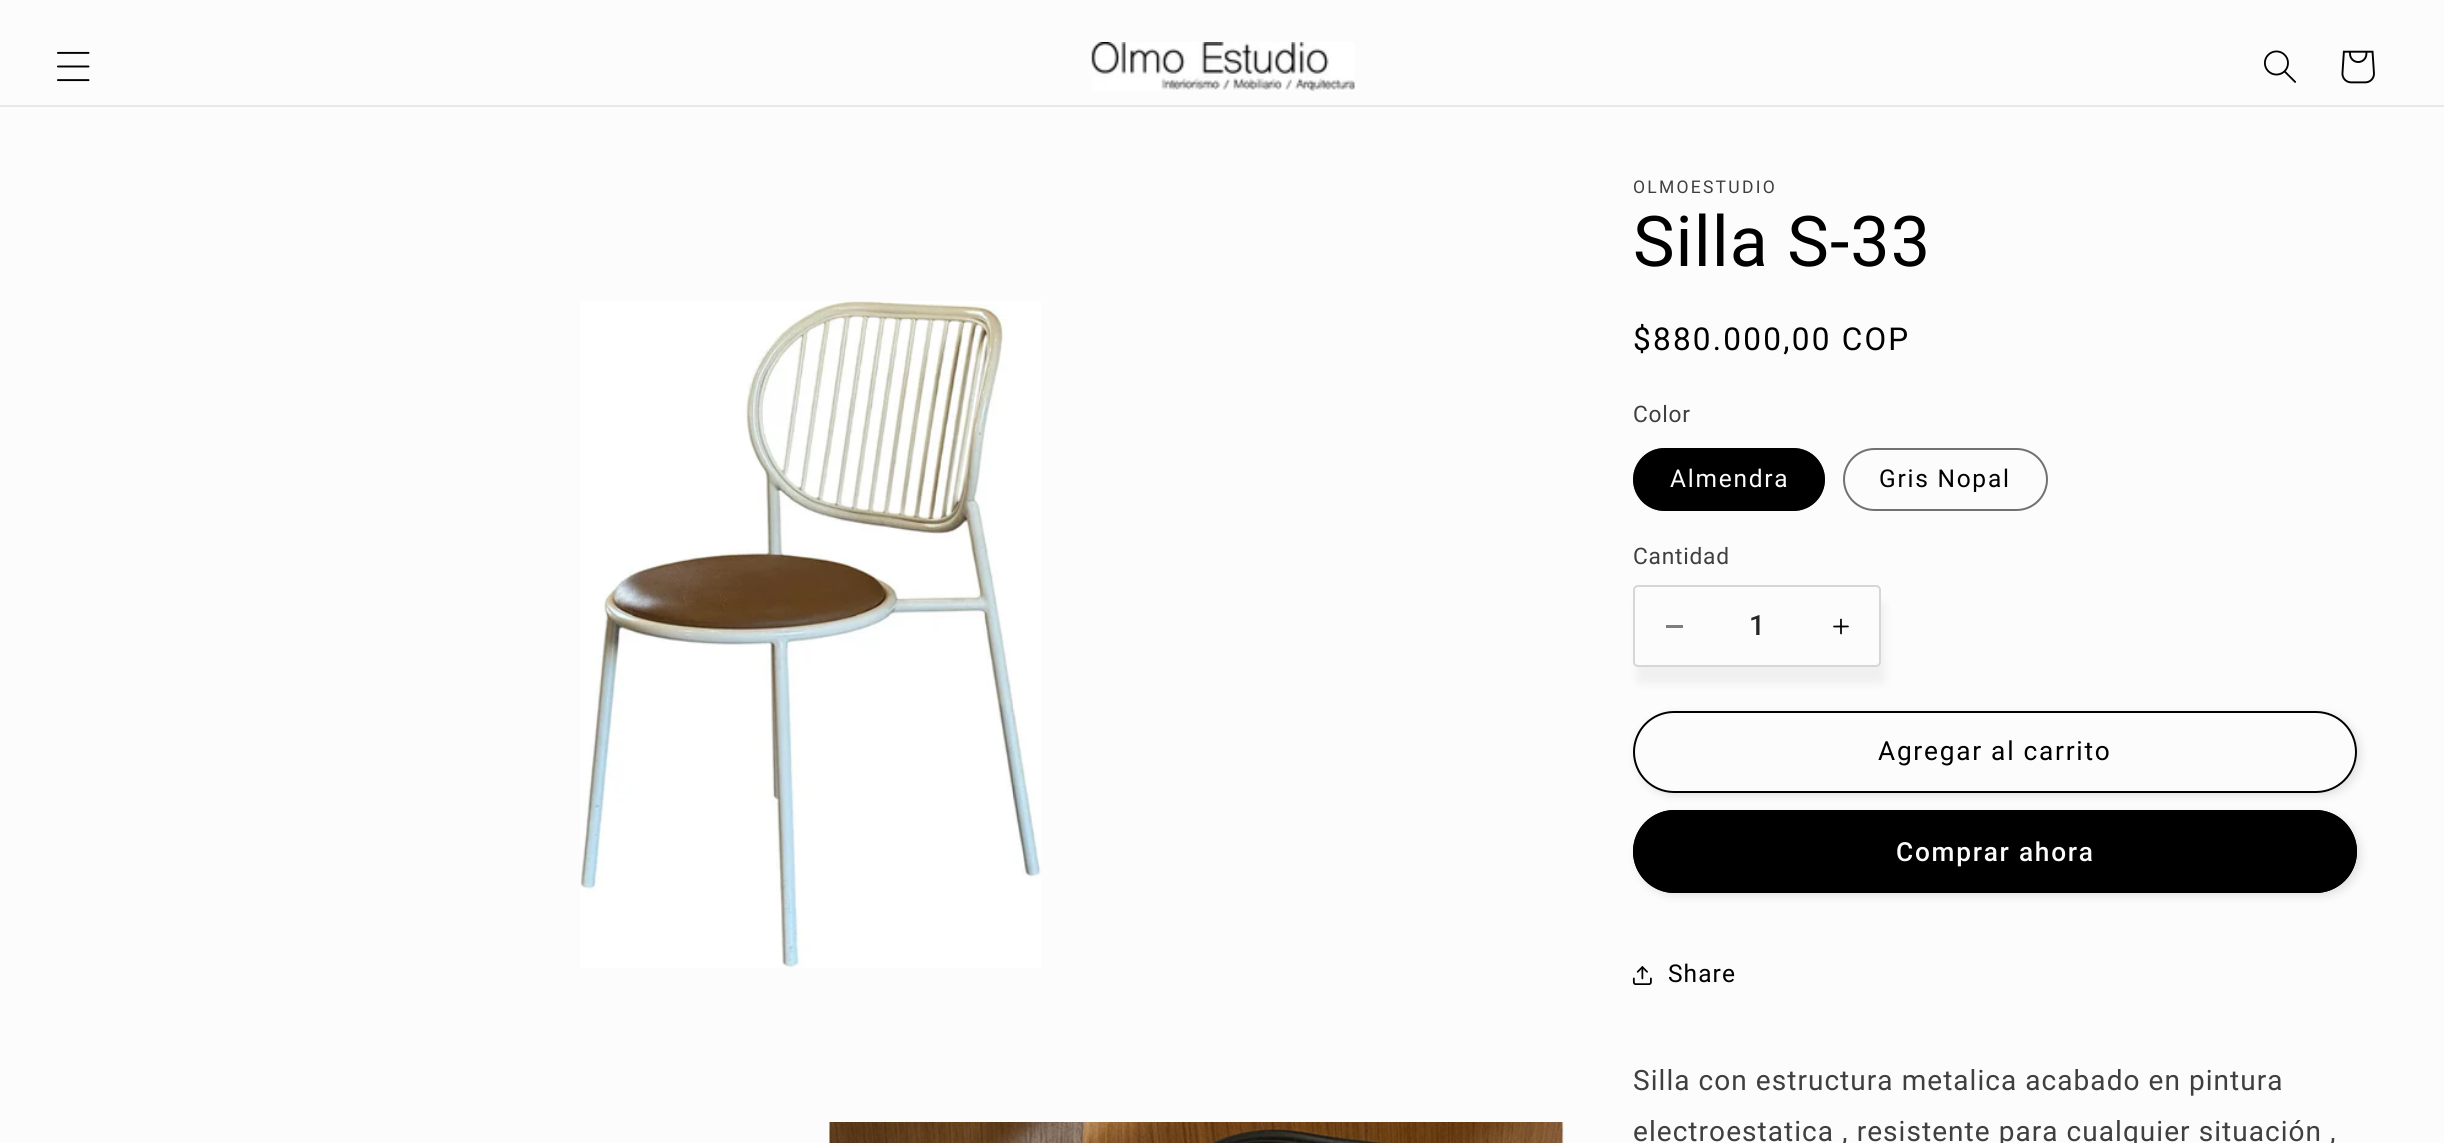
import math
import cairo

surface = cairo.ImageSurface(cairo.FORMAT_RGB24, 2444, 1143)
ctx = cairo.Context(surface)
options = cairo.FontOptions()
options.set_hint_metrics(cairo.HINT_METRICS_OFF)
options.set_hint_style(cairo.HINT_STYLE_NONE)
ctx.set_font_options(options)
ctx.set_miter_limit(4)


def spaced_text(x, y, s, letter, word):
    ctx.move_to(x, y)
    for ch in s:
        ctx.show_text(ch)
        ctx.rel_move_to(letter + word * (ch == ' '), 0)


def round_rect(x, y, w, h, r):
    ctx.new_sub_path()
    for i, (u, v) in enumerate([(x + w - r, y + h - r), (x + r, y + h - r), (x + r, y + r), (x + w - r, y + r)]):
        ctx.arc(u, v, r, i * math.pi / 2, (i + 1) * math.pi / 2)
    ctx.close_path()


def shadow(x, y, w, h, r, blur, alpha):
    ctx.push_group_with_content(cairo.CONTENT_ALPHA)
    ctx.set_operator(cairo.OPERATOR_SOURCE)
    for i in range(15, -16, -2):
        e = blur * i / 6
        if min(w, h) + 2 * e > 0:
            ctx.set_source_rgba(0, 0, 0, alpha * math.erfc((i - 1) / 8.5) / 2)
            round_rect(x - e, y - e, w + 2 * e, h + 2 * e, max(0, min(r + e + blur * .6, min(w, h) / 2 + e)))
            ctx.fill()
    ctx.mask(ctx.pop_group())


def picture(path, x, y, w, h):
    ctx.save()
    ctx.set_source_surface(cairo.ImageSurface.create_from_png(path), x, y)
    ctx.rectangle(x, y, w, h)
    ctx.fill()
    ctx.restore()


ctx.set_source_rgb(0.988, 0.988, 0.988)
ctx.paint()
ctx.set_source_rgb(0.91, 0.91, 0.91)
ctx.rectangle(0, 105, 2444, 2)
ctx.fill()
picture("img1.png", 57, 51, 33, 31)
picture("img2.png", 1091, 42, 264, 49)
picture("img3.png", 2264, 50, 32, 33)
picture("img4.png", 2341, 50, 34, 34)
picture("img5.png", 580, 301, 461, 667)
picture("img6.png", 829, 1122, 735, 21)
ctx.select_font_face("Roboto")
ctx.set_font_size(17.5)
ctx.set_source_rgb(0.247, 0.247, 0.247)
spaced_text(1633, 193, "OLMOESTUDIO", 2.25, 0)
ctx.set_font_size(70)
ctx.set_source_rgb(0, 0, 0)
spaced_text(1633, 266, "Silla S-33", 1.05, 0)
ctx.set_font_size(31.5)
spaced_text(1633, 350, "$880.000,00 COP", 2.25, 0)
ctx.set_font_size(22.75)
ctx.set_source_rgb(0.247, 0.247, 0.247)
spaced_text(1633, 422, "Color", 0.75, 0)
ctx.set_source_rgb(0, 0, 0)
round_rect(1633, 448, 192, 63, 31.5)
ctx.fill()
round_rect(1634, 449, 190, 61, 30.5)
ctx.set_source_rgba(0, 0, 0, 0.55)
ctx.stroke()
ctx.set_font_size(24.5)
ctx.set_source_rgb(0.988, 0.988, 0.988)
spaced_text(1670, 487, "Almendra", 1.75, 0)
round_rect(1844, 449, 203, 61, 30.5)
ctx.set_source_rgb(0.443, 0.443, 0.443)
ctx.stroke()
ctx.set_source_rgb(0, 0, 0)
spaced_text(1879, 487, "Gris Nopal", 1.75, 0)
ctx.set_font_size(22.75)
ctx.set_source_rgb(0.247, 0.247, 0.247)
spaced_text(1633, 564, "Cantidad", 0.75, 0)
ctx.set_source_rgb(0, 0, 0)
shadow(1636, 602, 249, 82, 5, 4.5, 0.05)
ctx.set_source_rgb(0.988, 0.988, 0.988)
round_rect(1633, 585, 248, 82, 5)
ctx.fill()
ctx.set_source_rgb(0.494, 0.494, 0.494)
ctx.rectangle(1666, 625, 17, 3)
ctx.fill()
picture("img7.png", 1833, 618, 16, 17)
round_rect(1634, 586, 246, 80, 4)
ctx.set_source_rgba(0, 0, 0, 0.15)
ctx.stroke()
ctx.select_font_face("Roboto Medium")
ctx.set_font_size(28)
ctx.set_source_rgb(0.149, 0.149, 0.149)
ctx.move_to(1749, 635)
ctx.show_text("1")
ctx.set_source_rgb(0, 0, 0)
shadow(1636, 714, 725, 82, 41, 4.5, 0.1)
ctx.set_source_rgb(0.988, 0.988, 0.988)
round_rect(1633, 711, 724, 82, 41)
ctx.fill()
round_rect(1634, 712, 722, 80, 40)
ctx.stroke()
round_rect(1634, 712, 722, 80, 40)
ctx.set_source_rgb(0, 0, 0)
ctx.stroke()
ctx.select_font_face("Roboto")
ctx.set_font_size(26.25)
spaced_text(1878, 760, "Agregar al carrito", 1.75, 0)
ctx.set_source_rgb(0, 0, 0)
shadow(1636, 814, 725, 82, 41, 4.5, 0.1)
ctx.set_source_rgb(0, 0, 0)
round_rect(1633, 810, 724, 83, 41.5)
ctx.fill()
round_rect(1634, 811, 722, 81, 40.5)
ctx.stroke()
ctx.select_font_face("Roboto Medium")
ctx.set_source_rgb(0.988, 0.988, 0.988)
spaced_text(1896, 861, "Comprar ahora", 1.75, 0)
picture("img8.png", 1632, 966, 20, 19)
ctx.select_font_face("Roboto")
ctx.set_font_size(24.5)
ctx.set_source_rgb(0, 0, 0)
spaced_text(1668, 982, "Share", 1.05, 0)
ctx.set_font_size(28)
ctx.set_source_rgb(0.247, 0.247, 0.247)
spaced_text(1633, 1090, "Silla con estructura metalica acabado en pintura", 1.05, 0)
spaced_text(1633, 1141, "electroestatica , resistente para cualquier situación ,", 1.05, 0)
surface.write_to_png("page.png")
